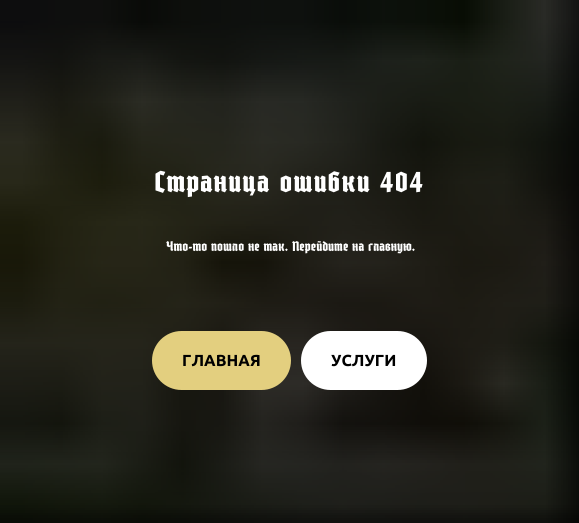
import math
import cairo

surface = cairo.ImageSurface(cairo.FORMAT_RGB24, 579, 523)
ctx = cairo.Context(surface)
options = cairo.FontOptions()
options.set_hint_metrics(cairo.HINT_METRICS_OFF)
options.set_hint_style(cairo.HINT_STYLE_NONE)
ctx.set_font_options(options)
ctx.set_miter_limit(4)


def spaced_text(x, y, s, letter, word):
    ctx.move_to(x, y)
    for ch in s:
        ctx.show_text(ch)
        ctx.rel_move_to(letter + word * (ch == ' '), 0)


def round_rect(x, y, w, h, r):
    ctx.new_sub_path()
    for i, (u, v) in enumerate([(x + w - r, y + h - r), (x + r, y + h - r), (x + r, y + r), (x + w - r, y + r)]):
        ctx.arc(u, v, r, i * math.pi / 2, (i + 1) * math.pi / 2)
    ctx.close_path()


def picture(path, x, y, w, h):
    ctx.save()
    ctx.set_source_surface(cairo.ImageSurface.create_from_png(path), x, y)
    ctx.rectangle(x, y, w, h)
    ctx.fill()
    ctx.restore()


ctx.set_source_rgb(0, 0, 0)
ctx.paint()
picture("img1.png", 0, 0, 579, 523)
gradient = cairo.LinearGradient(289, 0, 290, 523)
gradient.add_color_stop_rgba(0, 0, 0, 0, 0.7)
gradient.add_color_stop_rgba(1, 0, 0, 0, 0.8)
ctx.set_source(gradient)
ctx.rectangle(0, 0, 579, 523)
ctx.fill()
ctx.select_font_face("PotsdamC")
ctx.set_font_size(30)
ctx.set_source_rgb(1, 1, 1)
spaced_text(154, 192, "Страница ошибки 404", 1, 0)
ctx.set_font_size(14)
ctx.move_to(166, 251)
ctx.show_text("Что-то пошло не так. Перейдите на главную.")
ctx.set_source_rgb(0.89, 0.812, 0.498)
round_rect(152, 331, 139, 59, 29.5)
ctx.fill()
ctx.select_font_face("Ubuntu", cairo.FONT_SLANT_NORMAL, cairo.FONT_WEIGHT_BOLD)
ctx.set_font_size(16)
ctx.set_source_rgb(0, 0, 0)
ctx.move_to(182, 366)
ctx.show_text("ГЛАВНАЯ")
ctx.set_source_rgb(1, 1, 1)
round_rect(301, 331, 126, 59, 29.5)
ctx.fill()
ctx.set_source_rgb(0, 0, 0)
ctx.move_to(331, 366)
ctx.show_text("УСЛУГИ")
surface.write_to_png("page.png")
